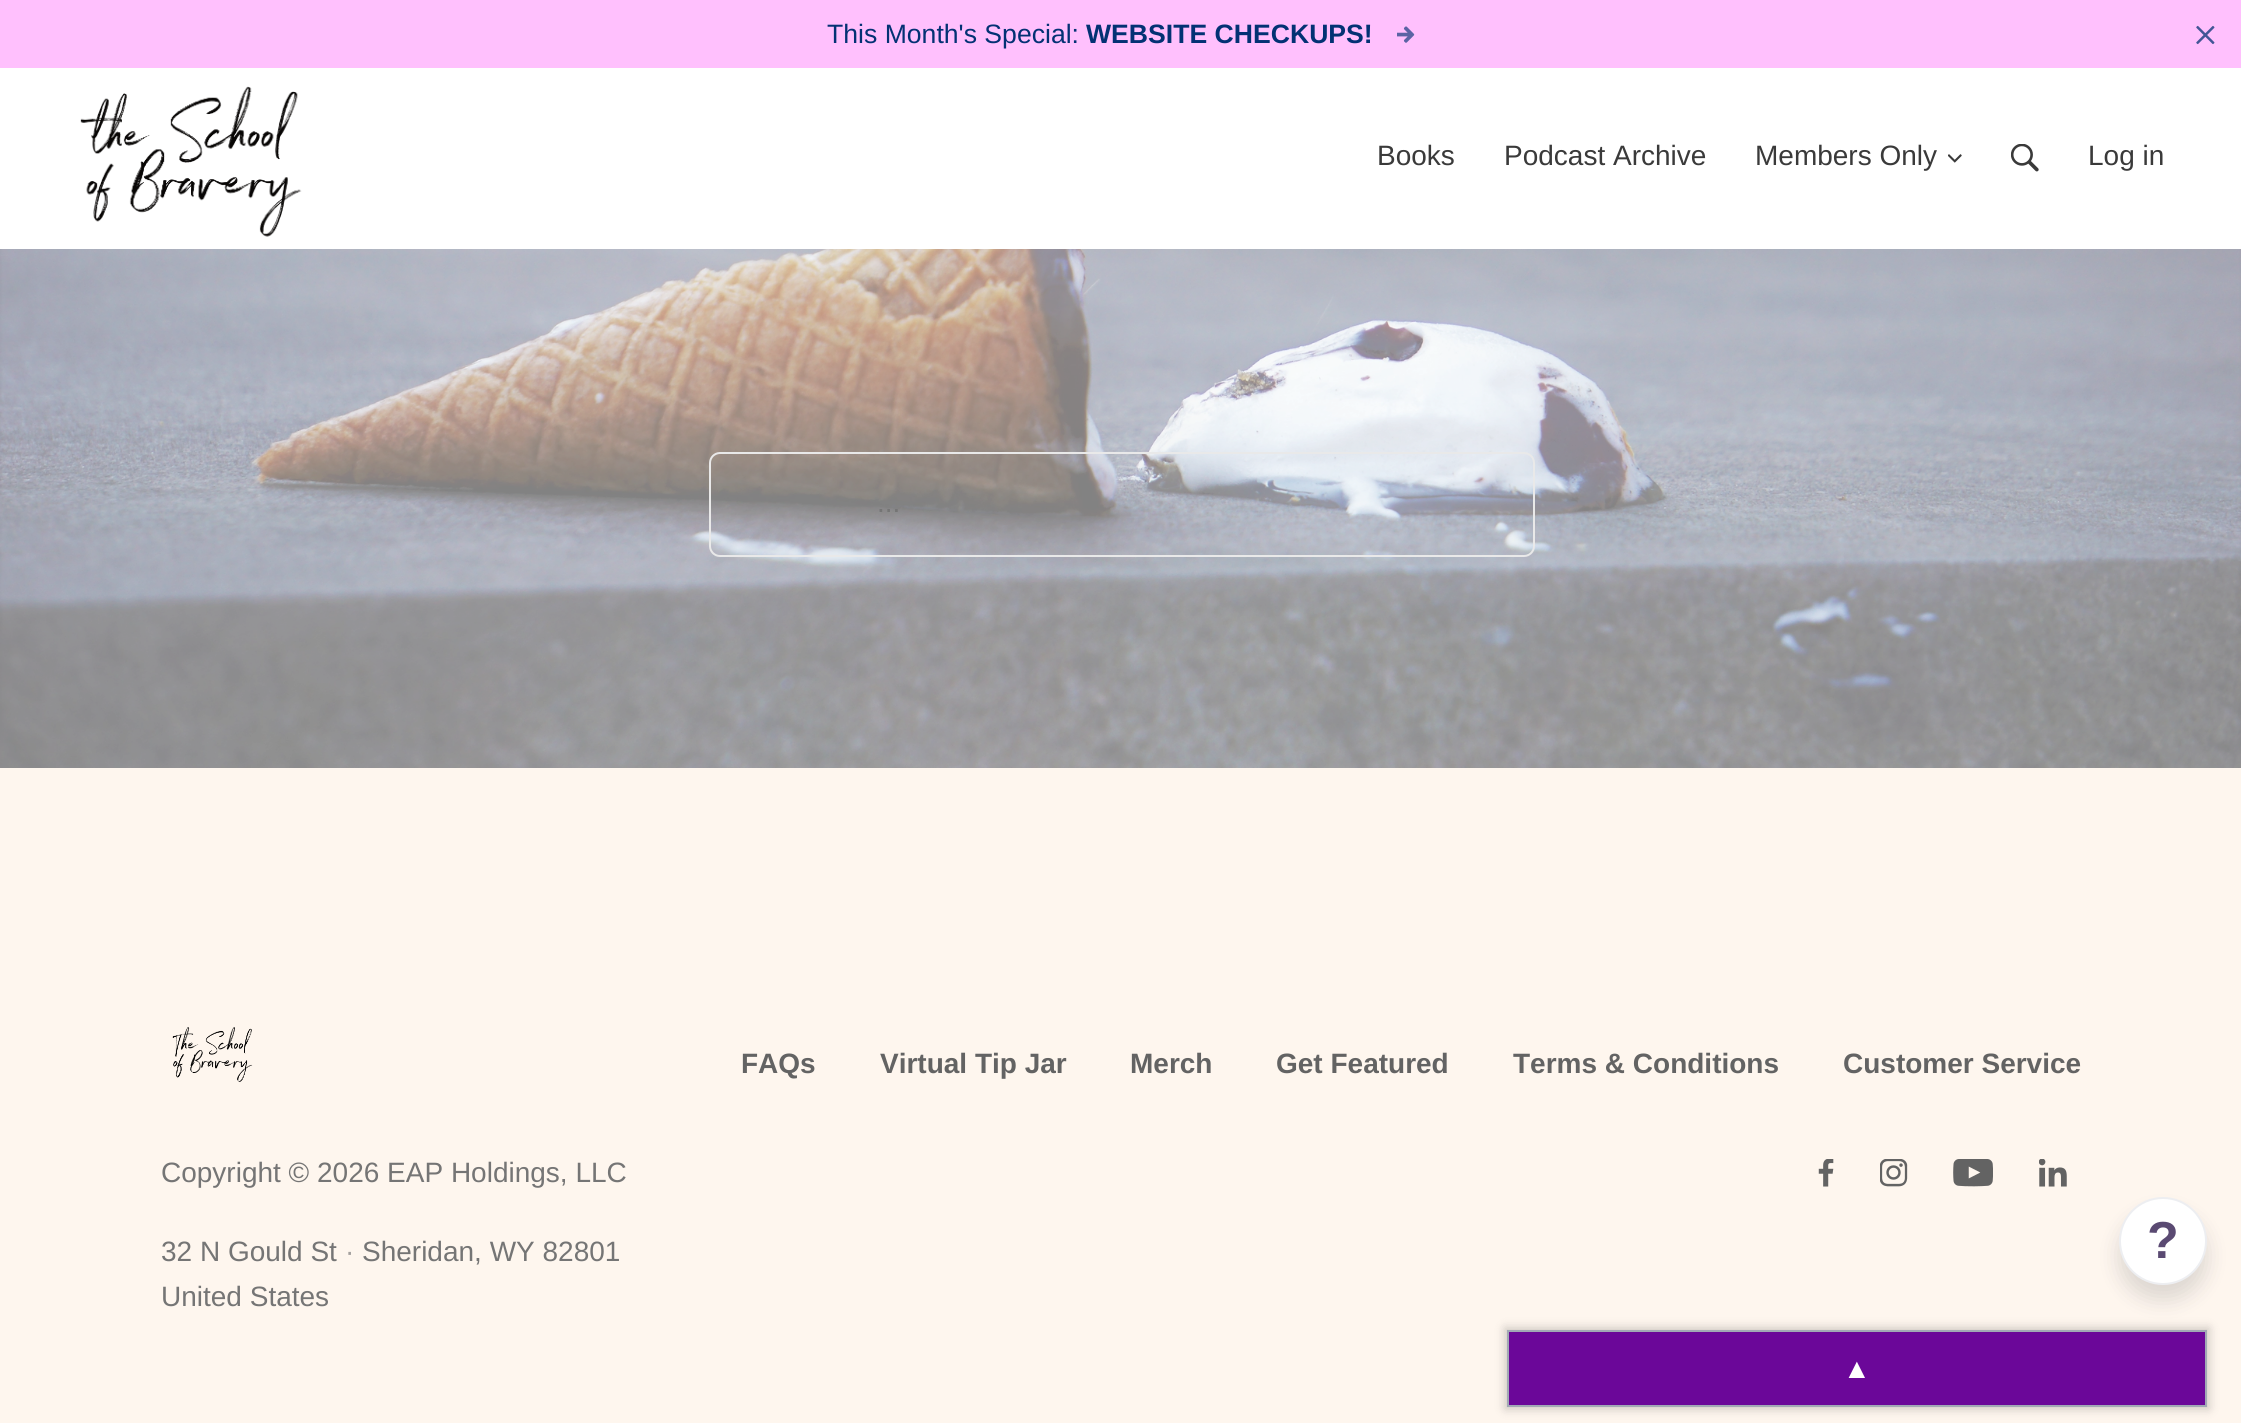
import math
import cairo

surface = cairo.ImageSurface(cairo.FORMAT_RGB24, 2241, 1423)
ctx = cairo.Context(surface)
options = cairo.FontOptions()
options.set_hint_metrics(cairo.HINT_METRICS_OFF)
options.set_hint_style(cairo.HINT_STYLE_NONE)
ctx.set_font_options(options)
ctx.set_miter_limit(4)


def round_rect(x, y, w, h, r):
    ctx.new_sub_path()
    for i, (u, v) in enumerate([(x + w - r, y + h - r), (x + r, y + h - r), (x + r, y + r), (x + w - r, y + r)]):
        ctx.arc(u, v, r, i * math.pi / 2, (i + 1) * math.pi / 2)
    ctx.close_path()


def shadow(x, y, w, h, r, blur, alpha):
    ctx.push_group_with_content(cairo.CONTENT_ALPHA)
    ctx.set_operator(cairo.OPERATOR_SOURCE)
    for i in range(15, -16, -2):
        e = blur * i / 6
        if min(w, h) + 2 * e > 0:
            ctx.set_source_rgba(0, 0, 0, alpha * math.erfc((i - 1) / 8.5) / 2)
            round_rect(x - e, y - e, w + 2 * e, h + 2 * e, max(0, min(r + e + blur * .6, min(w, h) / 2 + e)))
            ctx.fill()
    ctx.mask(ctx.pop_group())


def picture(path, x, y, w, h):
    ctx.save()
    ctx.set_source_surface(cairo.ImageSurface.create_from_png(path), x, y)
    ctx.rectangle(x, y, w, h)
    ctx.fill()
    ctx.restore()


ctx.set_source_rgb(1, 1, 1)
ctx.paint()
ctx.set_source_rgb(1, 0.753, 0.992)
ctx.rectangle(0, 0, 2241, 68)
ctx.fill()
ctx.select_font_face("Liberation Sans")
ctx.set_font_size(26.6)
ctx.set_source_rgb(0.012, 0.192, 0.455)
ctx.move_to(827, 43)
ctx.show_text("This Month's Special:")
ctx.select_font_face("Liberation Sans", cairo.FONT_SLANT_NORMAL, cairo.FONT_WEIGHT_BOLD)
ctx.move_to(1086, 43)
ctx.show_text("WEBSITE CHECKUPS!")
picture("img1.png", 1397, 26, 18, 17)
picture("img2.png", 2196, 25, 19, 20)
picture("img3.png", 80, 86, 222, 151)
ctx.select_font_face("Liberation Sans")
ctx.set_font_size(28)
ctx.set_source_rgb(0.227, 0.227, 0.227)
ctx.move_to(1377, 165)
ctx.show_text("Books")
ctx.move_to(1504, 165)
ctx.show_text("Podcast Archive")
ctx.move_to(1755, 165)
ctx.show_text("Members Only")
picture("img4.png", 1948, 154, 14, 9)
picture("img5.png", 2011, 144, 28, 28)
ctx.move_to(2088, 165)
ctx.show_text("Log in")
picture("img6.png", 0, 249, 2241, 519)
round_rect(710, 453, 824, 103, 10)
ctx.set_source_rgb(0.914, 0.914, 0.914)
ctx.stroke()
ctx.set_source_rgb(0.459, 0.459, 0.459)
ctx.move_to(877, 512)
ctx.show_text("...")
ctx.set_source_rgb(0.996, 0.961, 0.933)
ctx.rectangle(0, 768, 2241, 655)
ctx.fill()
ctx.select_font_face("Liberation Sans", cairo.FONT_SLANT_NORMAL, cairo.FONT_WEIGHT_BOLD)
ctx.set_source_rgb(0.388, 0.388, 0.388)
ctx.move_to(741, 1073)
ctx.show_text("FAQs")
ctx.move_to(880, 1073)
ctx.show_text("Virtual Tip Jar")
ctx.move_to(1130, 1073)
ctx.show_text("Merch")
ctx.move_to(1276, 1073)
ctx.show_text("Get Featured")
ctx.move_to(1513, 1073)
ctx.show_text("Terms & Conditions")
ctx.move_to(1843, 1073)
ctx.show_text("Customer Service")
picture("img7.png", 1818, 1159, 16, 28)
picture("img8.png", 1880, 1159, 28, 28)
picture("img9.png", 1953, 1159, 40, 28)
picture("img10.png", 2039, 1159, 28, 28)
picture("img11.png", 172, 1027, 81, 55)
ctx.select_font_face("Liberation Sans")
ctx.set_source_rgb(0.459, 0.459, 0.459)
ctx.move_to(161, 1182)
ctx.show_text("Copyright © 2026 EAP Holdings, LLC")
ctx.move_to(161, 1261)
ctx.show_text("32 N Gould St")
ctx.set_source_rgb(0.643, 0.631, 0.624)
ctx.move_to(345, 1261)
ctx.show_text("·")
ctx.set_source_rgb(0.459, 0.459, 0.459)
ctx.move_to(362, 1261)
ctx.show_text("Sheridan, WY 82801")
ctx.move_to(161, 1306)
ctx.show_text("United States")
ctx.set_source_rgb(0.133, 0.149, 0.184)
shadow(2119, 1213, 88, 87, 43.5, 10.5, 0.15)
ctx.set_source_rgb(1, 1, 1)
ctx.arc(2163, 1241, 43, 0, 2 * math.pi)
ctx.fill_preserve()
ctx.set_source_rgb(0.929, 0.933, 0.945)
ctx.stroke()
ctx.select_font_face("Liberation Sans", cairo.FONT_SLANT_NORMAL, cairo.FONT_WEIGHT_BOLD)
ctx.set_font_size(52)
ctx.set_source_rgb(0.353, 0.29, 0.447)
ctx.move_to(2147, 1258)
ctx.show_text("?")
ctx.set_source_rgb(0, 0, 0)
shadow(1505, 1328, 704, 81, 0, 5, 0.2)
ctx.set_source_rgb(0.42, 0.031, 0.6)
ctx.rectangle(1508, 1331, 698, 75)
ctx.fill_preserve()
ctx.set_source_rgb(0.631, 0.659, 0.71)
ctx.stroke()
ctx.select_font_face("Liberation Sans")
ctx.set_font_size(28)
ctx.set_source_rgb(1, 1, 1)
ctx.move_to(1843, 1378)
ctx.show_text("▲")
surface.write_to_png("page.png")
